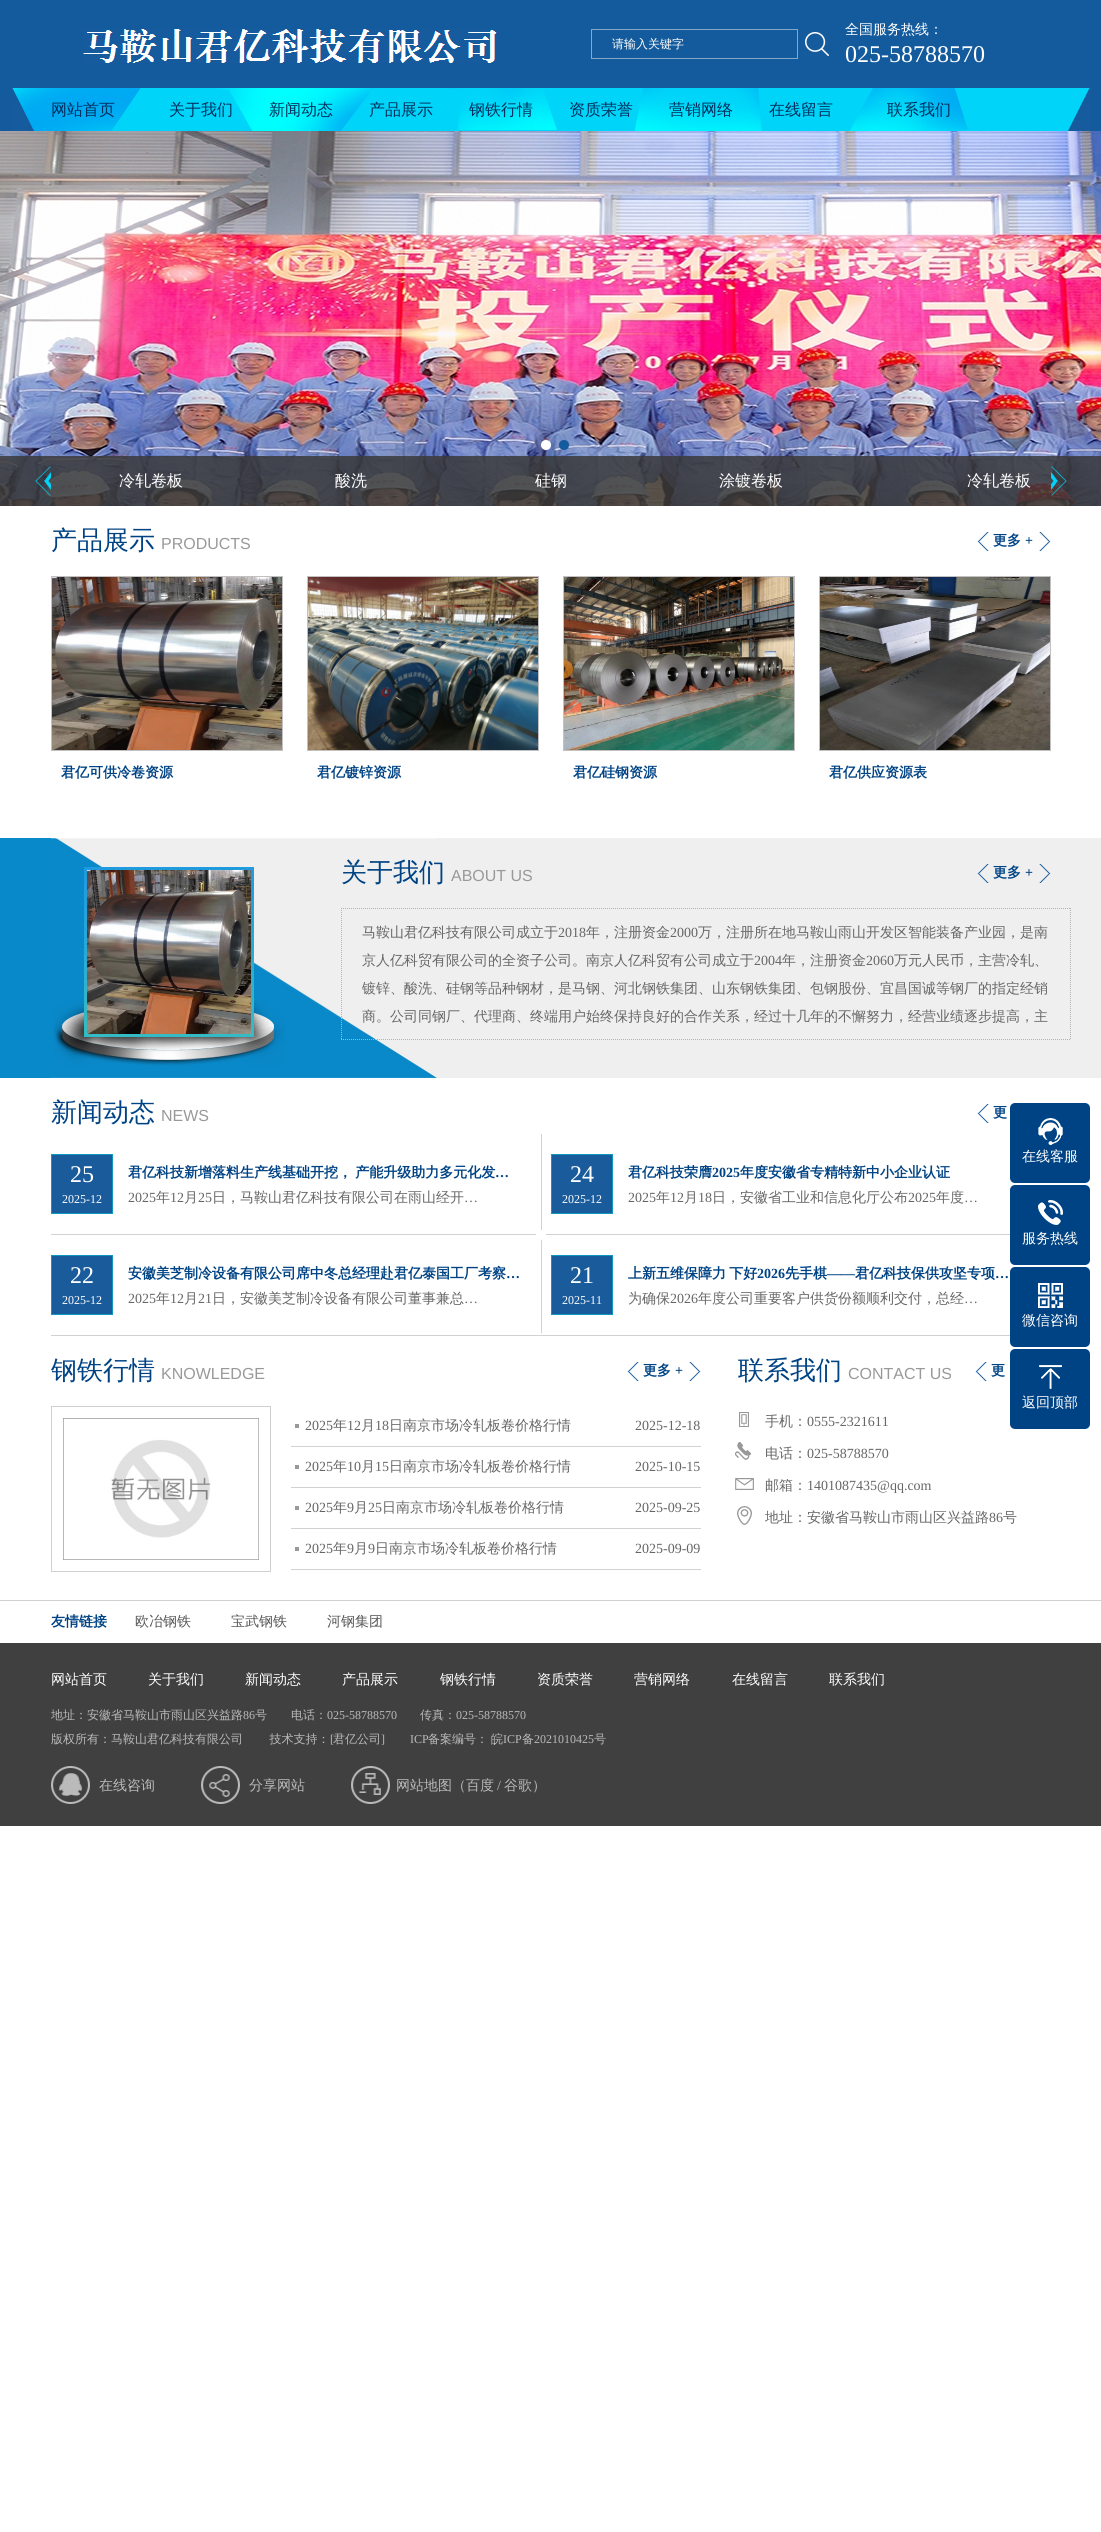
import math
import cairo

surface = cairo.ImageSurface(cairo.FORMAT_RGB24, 1101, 2532)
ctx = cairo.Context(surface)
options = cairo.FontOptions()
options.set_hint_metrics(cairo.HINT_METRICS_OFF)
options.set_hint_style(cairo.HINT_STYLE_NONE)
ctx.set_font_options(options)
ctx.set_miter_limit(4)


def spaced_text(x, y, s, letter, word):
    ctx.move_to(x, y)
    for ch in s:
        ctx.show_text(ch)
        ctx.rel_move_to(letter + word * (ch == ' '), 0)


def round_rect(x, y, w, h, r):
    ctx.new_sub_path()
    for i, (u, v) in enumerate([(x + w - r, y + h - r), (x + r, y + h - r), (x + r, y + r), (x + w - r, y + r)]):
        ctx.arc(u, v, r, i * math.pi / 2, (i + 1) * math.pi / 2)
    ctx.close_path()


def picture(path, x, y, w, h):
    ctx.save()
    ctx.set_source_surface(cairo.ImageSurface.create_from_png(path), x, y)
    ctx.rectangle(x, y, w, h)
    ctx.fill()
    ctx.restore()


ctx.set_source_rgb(1, 1, 1)
ctx.paint()
ctx.set_source_rgb(0.082, 0.357, 0.616)
ctx.rectangle(0, 0, 1101, 131)
ctx.fill()
picture("img1.png", 83, 29, 414, 34)
ctx.rectangle(591.5, 29.5, 206, 29)
ctx.set_source_rgb(0.522, 0.655, 0.784)
ctx.set_line_width(1)
ctx.stroke()
ctx.select_font_face("WenQuanYi Zen Hei Medium")
ctx.set_font_size(12)
ctx.set_source_rgb(1, 1, 1)
ctx.move_to(612, 48)
ctx.show_text("请输入关键字")
picture("img2.png", 803, 32, 26, 24)
ctx.set_font_size(14)
ctx.move_to(845, 34)
ctx.show_text("全国服务热线：")
ctx.select_font_face("Liberation Serif")
ctx.set_font_size(24)
ctx.move_to(845, 62)
ctx.show_text("025-58788570")
picture("img3.png", 12, 88, 1078, 43)
ctx.select_font_face("WenQuanYi Zen Hei Medium")
ctx.set_font_size(16)
ctx.set_source_rgb(0, 0.18, 0.361)
ctx.move_to(51, 115)
ctx.show_text("网站首页")
ctx.move_to(169, 115)
ctx.show_text("关于我们")
ctx.move_to(269, 115)
ctx.show_text("新闻动态")
ctx.move_to(369, 115)
ctx.show_text("产品展示")
ctx.move_to(469, 115)
ctx.show_text("钢铁行情")
ctx.move_to(569, 115)
ctx.show_text("资质荣誉")
ctx.move_to(669, 115)
ctx.show_text("营销网络")
ctx.move_to(769, 115)
ctx.show_text("在线留言")
ctx.move_to(887, 115)
ctx.show_text("联系我们")
picture("img4.png", 0, 131, 1101, 375)
ctx.set_source_rgb(1, 1, 1)
ctx.arc(546, 445, 5, 0, 2 * math.pi)
ctx.fill()
ctx.set_source_rgb(0.082, 0.357, 0.616)
ctx.arc(564, 445, 5, 0, 2 * math.pi)
ctx.fill()
ctx.set_source_rgba(0.227, 0.227, 0.227, 0.85)
ctx.rectangle(0, 456, 1101, 50)
ctx.fill()
picture("img5.png", 35, 466, 16, 30)
ctx.set_source_rgb(1, 1, 1)
ctx.move_to(119, 486)
ctx.show_text("冷轧卷板")
ctx.move_to(335, 486)
ctx.show_text("酸洗")
ctx.move_to(535, 486)
ctx.show_text("硅钢")
ctx.move_to(719, 486)
ctx.show_text("涂镀卷板")
ctx.move_to(967, 486)
ctx.show_text("冷轧卷板")
picture("img6.png", 1051, 466, 16, 30)
ctx.set_font_size(26)
ctx.set_source_rgb(0, 0.263, 0.518)
ctx.move_to(51, 549)
ctx.show_text("产品展示")
ctx.select_font_face("Liberation Sans")
ctx.set_font_size(16)
ctx.set_source_rgb(0.6, 0.6, 0.6)
ctx.move_to(161, 549)
ctx.show_text("PRODUCTS")
picture("img7.png", 977, 532, 74, 19)
ctx.select_font_face("WenQuanYi Zen Hei", cairo.FONT_SLANT_NORMAL, cairo.FONT_WEIGHT_BOLD)
ctx.set_font_size(14)
ctx.set_source_rgb(0, 0.263, 0.518)
ctx.move_to(993, 545)
ctx.show_text("更多")
ctx.select_font_face("Liberation Serif", cairo.FONT_SLANT_NORMAL, cairo.FONT_WEIGHT_BOLD)
ctx.move_to(1025, 545)
ctx.show_text("+")
ctx.rectangle(51.5, 576.5, 231, 174)
ctx.set_source_rgb(0.761, 0.753, 0.753)
ctx.stroke()
picture("img8.png", 52, 577, 230, 173)
ctx.select_font_face("WenQuanYi Zen Hei", cairo.FONT_SLANT_NORMAL, cairo.FONT_WEIGHT_BOLD)
ctx.set_source_rgb(0, 0.263, 0.518)
ctx.move_to(61, 777)
ctx.show_text("君亿可供冷卷资源")
ctx.rectangle(307.5, 576.5, 231, 174)
ctx.set_source_rgb(0.761, 0.753, 0.753)
ctx.stroke()
picture("img9.png", 308, 577, 230, 173)
ctx.set_source_rgb(0, 0.263, 0.518)
ctx.move_to(317, 777)
ctx.show_text("君亿镀锌资源")
ctx.rectangle(563.5, 576.5, 231, 174)
ctx.set_source_rgb(0.761, 0.753, 0.753)
ctx.stroke()
picture("img10.png", 564, 577, 230, 173)
ctx.set_source_rgb(0, 0.263, 0.518)
ctx.move_to(573, 777)
ctx.show_text("君亿硅钢资源")
ctx.rectangle(819.5, 576.5, 231, 174)
ctx.set_source_rgb(0.761, 0.753, 0.753)
ctx.stroke()
picture("img11.png", 820, 577, 230, 173)
ctx.set_source_rgb(0, 0.263, 0.518)
ctx.move_to(829, 777)
ctx.show_text("君亿供应资源表")
ctx.set_source_rgb(0.035, 0.537, 0.788)
ctx.rectangle(0, 838, 51, 240)
ctx.fill()
ctx.set_source_rgb(0.937, 0.937, 0.937)
ctx.rectangle(437, 838, 664, 240)
ctx.fill()
picture("img12.png", 51, 838, 386, 240)
picture("img13.png", 53, 1000, 233, 66)
picture("img14.png", 84, 867, 170, 170)
picture("img15.png", 87, 870, 164, 164)
ctx.select_font_face("WenQuanYi Zen Hei Medium")
ctx.set_font_size(26)
ctx.set_source_rgb(0, 0.263, 0.518)
ctx.move_to(341, 881)
ctx.show_text("关于我们")
ctx.select_font_face("Liberation Sans")
ctx.set_font_size(16)
ctx.set_source_rgb(0.6, 0.6, 0.6)
ctx.move_to(451, 881)
ctx.show_text("ABOUT US")
picture("img16.png", 977, 864, 74, 19)
ctx.select_font_face("WenQuanYi Zen Hei", cairo.FONT_SLANT_NORMAL, cairo.FONT_WEIGHT_BOLD)
ctx.set_font_size(14)
ctx.set_source_rgb(0, 0.263, 0.518)
ctx.move_to(993, 877)
ctx.show_text("更多")
ctx.select_font_face("Liberation Serif", cairo.FONT_SLANT_NORMAL, cairo.FONT_WEIGHT_BOLD)
ctx.move_to(1025, 877)
ctx.show_text("+")
ctx.new_path()
ctx.move_to(341, 908.5)
ctx.line_to(1071, 908.5)
ctx.set_source_rgb(0.702, 0.702, 0.702)
ctx.set_dash([1, 1])
ctx.stroke()
ctx.new_path()
ctx.move_to(1070.5, 908)
ctx.line_to(1070.5, 1040)
ctx.stroke()
ctx.new_path()
ctx.move_to(341, 1039.5)
ctx.line_to(1071, 1039.5)
ctx.stroke()
ctx.new_path()
ctx.move_to(341.5, 908)
ctx.line_to(341.5, 1040)
ctx.stroke()
ctx.select_font_face("WenQuanYi Zen Hei Medium")
ctx.set_source_rgb(0.4, 0.4, 0.4)
ctx.move_to(362, 937)
ctx.show_text("马鞍山君亿科技有限公司成立于")
ctx.select_font_face("Liberation Serif")
ctx.move_to(558, 937)
ctx.show_text("2018")
ctx.select_font_face("WenQuanYi Zen Hei Medium")
ctx.move_to(586, 937)
ctx.show_text("年，注册资金")
ctx.select_font_face("Liberation Serif")
ctx.move_to(670, 937)
ctx.show_text("2000")
ctx.select_font_face("WenQuanYi Zen Hei Medium")
ctx.move_to(698, 937)
ctx.show_text("万，注册所在地马鞍山雨山开发区智能装备产业园，是南")
ctx.move_to(362, 965)
ctx.show_text("京人亿科贸有限公司的全资子公司。南京人亿科贸有公司成立于")
ctx.select_font_face("Liberation Serif")
ctx.move_to(754, 965)
ctx.show_text("2004")
ctx.select_font_face("WenQuanYi Zen Hei Medium")
ctx.move_to(782, 965)
ctx.show_text("年，注册资金")
ctx.select_font_face("Liberation Serif")
ctx.move_to(866, 965)
ctx.show_text("2060")
ctx.select_font_face("WenQuanYi Zen Hei Medium")
ctx.move_to(894, 965)
ctx.show_text("万元人民币，主营冷轧、")
ctx.move_to(362, 993)
ctx.show_text("镀锌、酸洗、硅钢等品种钢材，是马钢、河北钢铁集团、山东钢铁集团、包钢股份、宜昌国诚等钢厂的指定经销")
ctx.move_to(362, 1021)
ctx.show_text("商。公司同钢厂、代理商、终端用户始终保持良好的合作关系，经过十几年的不懈努力，经营业绩逐步提高，主")
ctx.set_font_size(26)
ctx.set_source_rgb(0, 0.263, 0.518)
ctx.move_to(51, 1121)
ctx.show_text("新闻动态")
ctx.select_font_face("Liberation Sans")
ctx.set_font_size(16)
ctx.set_source_rgb(0.6, 0.6, 0.6)
ctx.move_to(161, 1121)
ctx.show_text("NEWS")
picture("img17.png", 977, 1104, 12, 19)
ctx.select_font_face("WenQuanYi Zen Hei", cairo.FONT_SLANT_NORMAL, cairo.FONT_WEIGHT_BOLD)
ctx.set_font_size(14)
ctx.set_source_rgb(0, 0.263, 0.518)
ctx.move_to(993, 1117)
ctx.show_text("更")
ctx.set_source_rgb(0.824, 0.824, 0.824)
ctx.rectangle(51, 1234, 959, 1)
ctx.fill()
ctx.set_source_rgb(0.102, 0.357, 0.608)
ctx.rectangle(51.5, 1154.5, 61, 59)
ctx.fill_preserve()
ctx.set_source_rgb(0.063, 0.592, 0.749)
ctx.set_dash([])
ctx.stroke()
ctx.select_font_face("Liberation Serif")
ctx.set_font_size(24)
ctx.set_source_rgb(1, 1, 1)
ctx.move_to(70, 1182)
ctx.show_text("25")
ctx.set_font_size(12)
ctx.move_to(62, 1203)
ctx.show_text("2025-12")
ctx.select_font_face("WenQuanYi Zen Hei", cairo.FONT_SLANT_NORMAL, cairo.FONT_WEIGHT_BOLD)
ctx.set_font_size(14)
ctx.set_source_rgb(0, 0.263, 0.518)
spaced_text(128, 1177, "君亿科技新增落料生产线基础开挖， 产能升级助力多元化发", 0, -1)
ctx.select_font_face("Liberation Serif", cairo.FONT_SLANT_NORMAL, cairo.FONT_WEIGHT_BOLD)
ctx.move_to(495, 1177)
ctx.show_text("…")
ctx.select_font_face("Liberation Serif")
ctx.set_source_rgb(0.4, 0.4, 0.4)
ctx.move_to(128, 1202)
ctx.show_text("2025")
ctx.select_font_face("WenQuanYi Zen Hei Medium")
ctx.move_to(156, 1202)
ctx.show_text("年")
ctx.select_font_face("Liberation Serif")
ctx.move_to(170, 1202)
ctx.show_text("12")
ctx.select_font_face("WenQuanYi Zen Hei Medium")
ctx.move_to(184, 1202)
ctx.show_text("月")
ctx.select_font_face("Liberation Serif")
ctx.move_to(198, 1202)
ctx.show_text("25")
ctx.select_font_face("WenQuanYi Zen Hei Medium")
ctx.move_to(212, 1202)
ctx.show_text("日，马鞍山君亿科技有限公司在雨山经开")
ctx.select_font_face("Liberation Serif")
ctx.move_to(464, 1202)
ctx.show_text("…")
picture("img18.png", 536, 1134, 10, 199)
ctx.set_source_rgb(0.102, 0.357, 0.608)
ctx.rectangle(551.5, 1154.5, 61, 59)
ctx.fill_preserve()
ctx.set_source_rgb(0.063, 0.592, 0.749)
ctx.stroke()
ctx.set_font_size(24)
ctx.set_source_rgb(1, 1, 1)
ctx.move_to(570, 1182)
ctx.show_text("24")
ctx.set_font_size(12)
ctx.move_to(562, 1203)
ctx.show_text("2025-12")
ctx.select_font_face("WenQuanYi Zen Hei", cairo.FONT_SLANT_NORMAL, cairo.FONT_WEIGHT_BOLD)
ctx.set_font_size(14)
ctx.set_source_rgb(0, 0.263, 0.518)
ctx.move_to(628, 1177)
ctx.show_text("君亿科技荣膺")
ctx.select_font_face("Liberation Serif", cairo.FONT_SLANT_NORMAL, cairo.FONT_WEIGHT_BOLD)
ctx.move_to(712, 1177)
ctx.show_text("2025")
ctx.select_font_face("WenQuanYi Zen Hei", cairo.FONT_SLANT_NORMAL, cairo.FONT_WEIGHT_BOLD)
ctx.move_to(740, 1177)
ctx.show_text("年度安徽省专精特新中小企业认证")
ctx.select_font_face("Liberation Serif")
ctx.set_source_rgb(0.4, 0.4, 0.4)
ctx.move_to(628, 1202)
ctx.show_text("2025")
ctx.select_font_face("WenQuanYi Zen Hei Medium")
ctx.move_to(656, 1202)
ctx.show_text("年")
ctx.select_font_face("Liberation Serif")
ctx.move_to(670, 1202)
ctx.show_text("12")
ctx.select_font_face("WenQuanYi Zen Hei Medium")
ctx.move_to(684, 1202)
ctx.show_text("月")
ctx.select_font_face("Liberation Serif")
ctx.move_to(698, 1202)
ctx.show_text("18")
ctx.select_font_face("WenQuanYi Zen Hei Medium")
ctx.move_to(712, 1202)
ctx.show_text("日，安徽省工业和信息化厅公布")
ctx.select_font_face("Liberation Serif")
ctx.move_to(908, 1202)
ctx.show_text("2025")
ctx.select_font_face("WenQuanYi Zen Hei Medium")
ctx.move_to(936, 1202)
ctx.show_text("年度")
ctx.select_font_face("Liberation Serif")
ctx.move_to(964, 1202)
ctx.show_text("…")
ctx.set_source_rgb(0.824, 0.824, 0.824)
ctx.rectangle(51, 1335, 959, 1)
ctx.fill()
ctx.set_source_rgb(0.102, 0.357, 0.608)
ctx.rectangle(51.5, 1255.5, 61, 59)
ctx.fill_preserve()
ctx.set_source_rgb(0.063, 0.592, 0.749)
ctx.stroke()
ctx.set_font_size(24)
ctx.set_source_rgb(1, 1, 1)
ctx.move_to(70, 1283)
ctx.show_text("22")
ctx.set_font_size(12)
ctx.move_to(62, 1304)
ctx.show_text("2025-12")
ctx.select_font_face("WenQuanYi Zen Hei", cairo.FONT_SLANT_NORMAL, cairo.FONT_WEIGHT_BOLD)
ctx.set_font_size(14)
ctx.set_source_rgb(0, 0.263, 0.518)
ctx.move_to(128, 1278)
ctx.show_text("安徽美芝制冷设备有限公司席中冬总经理赴君亿泰国工厂考察")
ctx.select_font_face("Liberation Serif", cairo.FONT_SLANT_NORMAL, cairo.FONT_WEIGHT_BOLD)
ctx.move_to(506, 1278)
ctx.show_text("…")
ctx.select_font_face("Liberation Serif")
ctx.set_source_rgb(0.4, 0.4, 0.4)
ctx.move_to(128, 1303)
ctx.show_text("2025")
ctx.select_font_face("WenQuanYi Zen Hei Medium")
ctx.move_to(156, 1303)
ctx.show_text("年")
ctx.select_font_face("Liberation Serif")
ctx.move_to(170, 1303)
ctx.show_text("12")
ctx.select_font_face("WenQuanYi Zen Hei Medium")
ctx.move_to(184, 1303)
ctx.show_text("月")
ctx.select_font_face("Liberation Serif")
ctx.move_to(198, 1303)
ctx.show_text("21")
ctx.select_font_face("WenQuanYi Zen Hei Medium")
ctx.move_to(212, 1303)
ctx.show_text("日，安徽美芝制冷设备有限公司董事兼总")
ctx.select_font_face("Liberation Serif")
ctx.move_to(464, 1303)
ctx.show_text("…")
ctx.set_source_rgb(0.102, 0.357, 0.608)
ctx.rectangle(551.5, 1255.5, 61, 59)
ctx.fill_preserve()
ctx.set_source_rgb(0.063, 0.592, 0.749)
ctx.stroke()
ctx.set_font_size(24)
ctx.set_source_rgb(1, 1, 1)
ctx.move_to(570, 1283)
ctx.show_text("21")
ctx.set_font_size(12)
ctx.move_to(562, 1304)
ctx.show_text("2025-11")
ctx.select_font_face("WenQuanYi Zen Hei", cairo.FONT_SLANT_NORMAL, cairo.FONT_WEIGHT_BOLD)
ctx.set_font_size(14)
ctx.set_source_rgb(0, 0.263, 0.518)
spaced_text(628, 1278, "上新五维保障力 下好", 0, -1)
ctx.select_font_face("Liberation Serif", cairo.FONT_SLANT_NORMAL, cairo.FONT_WEIGHT_BOLD)
ctx.move_to(757, 1278)
ctx.show_text("2026")
ctx.select_font_face("WenQuanYi Zen Hei", cairo.FONT_SLANT_NORMAL, cairo.FONT_WEIGHT_BOLD)
ctx.move_to(785, 1278)
ctx.show_text("先手棋")
ctx.select_font_face("Liberation Serif", cairo.FONT_SLANT_NORMAL, cairo.FONT_WEIGHT_BOLD)
ctx.move_to(827, 1278)
ctx.show_text("——")
ctx.select_font_face("WenQuanYi Zen Hei", cairo.FONT_SLANT_NORMAL, cairo.FONT_WEIGHT_BOLD)
ctx.move_to(855, 1278)
ctx.show_text("君亿科技保供攻坚专项")
ctx.select_font_face("Liberation Serif", cairo.FONT_SLANT_NORMAL, cairo.FONT_WEIGHT_BOLD)
ctx.move_to(995, 1278)
ctx.show_text("…")
ctx.select_font_face("WenQuanYi Zen Hei Medium")
ctx.set_source_rgb(0.4, 0.4, 0.4)
ctx.move_to(628, 1303)
ctx.show_text("为确保")
ctx.select_font_face("Liberation Serif")
ctx.move_to(670, 1303)
ctx.show_text("2026")
ctx.select_font_face("WenQuanYi Zen Hei Medium")
ctx.move_to(698, 1303)
ctx.show_text("年度公司重要客户供货份额顺利交付，总经")
ctx.select_font_face("Liberation Serif")
ctx.move_to(964, 1303)
ctx.show_text("…")
ctx.set_source_rgb(0, 0.263, 0.518)
round_rect(1010, 1103, 80, 80, 5)
ctx.fill()
picture("img19.png", 1038, 1118, 25, 27)
ctx.select_font_face("WenQuanYi Zen Hei Medium")
ctx.set_source_rgb(1, 1, 1)
ctx.move_to(1022, 1161)
ctx.show_text("在线客服")
ctx.set_source_rgb(0, 0.263, 0.518)
round_rect(1010, 1185, 80, 80, 5)
ctx.fill()
picture("img20.png", 1038, 1200, 25, 25)
ctx.set_source_rgb(1, 1, 1)
ctx.move_to(1022, 1243)
ctx.show_text("服务热线")
ctx.set_source_rgb(0, 0.263, 0.518)
round_rect(1010, 1267, 80, 80, 5)
ctx.fill()
picture("img21.png", 1038, 1283, 25, 25)
ctx.set_source_rgb(1, 1, 1)
ctx.move_to(1022, 1325)
ctx.show_text("微信咨询")
ctx.set_source_rgb(0, 0.263, 0.518)
round_rect(1010, 1349, 80, 80, 5)
ctx.fill()
picture("img22.png", 1039, 1365, 23, 24)
ctx.set_source_rgb(1, 1, 1)
ctx.move_to(1022, 1407)
ctx.show_text("返回顶部")
ctx.set_font_size(26)
ctx.set_source_rgb(0, 0.263, 0.518)
ctx.move_to(51, 1379)
ctx.show_text("钢铁行情")
ctx.select_font_face("Liberation Sans")
ctx.set_font_size(16)
ctx.set_source_rgb(0.6, 0.6, 0.6)
ctx.move_to(161, 1379)
ctx.show_text("KNOWLEDGE")
picture("img7.png", 627, 1362, 74, 19)
ctx.select_font_face("WenQuanYi Zen Hei", cairo.FONT_SLANT_NORMAL, cairo.FONT_WEIGHT_BOLD)
ctx.set_font_size(14)
ctx.set_source_rgb(0, 0.263, 0.518)
ctx.move_to(643, 1375)
ctx.show_text("更多")
ctx.select_font_face("Liberation Serif", cairo.FONT_SLANT_NORMAL, cairo.FONT_WEIGHT_BOLD)
ctx.move_to(675, 1375)
ctx.show_text("+")
ctx.rectangle(51.5, 1406.5, 219, 165)
ctx.set_source_rgb(0.816, 0.816, 0.816)
ctx.stroke()
picture("img23.png", 63, 1418, 196, 142)
ctx.set_source_rgb(0.6, 0.6, 0.6)
ctx.rectangle(295, 1424, 4, 4)
ctx.fill()
ctx.set_source_rgb(0.824, 0.824, 0.824)
ctx.rectangle(291, 1446, 410, 1)
ctx.fill()
ctx.select_font_face("Liberation Serif")
ctx.set_source_rgb(0.4, 0.4, 0.4)
ctx.move_to(305, 1430)
ctx.show_text("2025")
ctx.select_font_face("WenQuanYi Zen Hei Medium")
ctx.move_to(333, 1430)
ctx.show_text("年")
ctx.select_font_face("Liberation Serif")
ctx.move_to(347, 1430)
ctx.show_text("12")
ctx.select_font_face("WenQuanYi Zen Hei Medium")
ctx.move_to(361, 1430)
ctx.show_text("月")
ctx.select_font_face("Liberation Serif")
ctx.move_to(375, 1430)
ctx.show_text("18")
ctx.select_font_face("WenQuanYi Zen Hei Medium")
ctx.move_to(389, 1430)
ctx.show_text("日南京市场冷轧板卷价格行情")
ctx.select_font_face("Liberation Serif")
ctx.move_to(635, 1430)
ctx.show_text("2025-12-18")
ctx.set_source_rgb(0.6, 0.6, 0.6)
ctx.rectangle(295, 1465, 4, 4)
ctx.fill()
ctx.set_source_rgb(0.824, 0.824, 0.824)
ctx.rectangle(291, 1487, 410, 1)
ctx.fill()
ctx.set_source_rgb(0.4, 0.4, 0.4)
ctx.move_to(305, 1471)
ctx.show_text("2025")
ctx.select_font_face("WenQuanYi Zen Hei Medium")
ctx.move_to(333, 1471)
ctx.show_text("年")
ctx.select_font_face("Liberation Serif")
ctx.move_to(347, 1471)
ctx.show_text("10")
ctx.select_font_face("WenQuanYi Zen Hei Medium")
ctx.move_to(361, 1471)
ctx.show_text("月")
ctx.select_font_face("Liberation Serif")
ctx.move_to(375, 1471)
ctx.show_text("15")
ctx.select_font_face("WenQuanYi Zen Hei Medium")
ctx.move_to(389, 1471)
ctx.show_text("日南京市场冷轧板卷价格行情")
ctx.select_font_face("Liberation Serif")
ctx.move_to(635, 1471)
ctx.show_text("2025-10-15")
ctx.set_source_rgb(0.6, 0.6, 0.6)
ctx.rectangle(295, 1506, 4, 4)
ctx.fill()
ctx.set_source_rgb(0.824, 0.824, 0.824)
ctx.rectangle(291, 1528, 410, 1)
ctx.fill()
ctx.set_source_rgb(0.4, 0.4, 0.4)
ctx.move_to(305, 1512)
ctx.show_text("2025")
ctx.select_font_face("WenQuanYi Zen Hei Medium")
ctx.move_to(333, 1512)
ctx.show_text("年")
ctx.select_font_face("Liberation Serif")
ctx.move_to(347, 1512)
ctx.show_text("9")
ctx.select_font_face("WenQuanYi Zen Hei Medium")
ctx.move_to(354, 1512)
ctx.show_text("月")
ctx.select_font_face("Liberation Serif")
ctx.move_to(368, 1512)
ctx.show_text("25")
ctx.select_font_face("WenQuanYi Zen Hei Medium")
ctx.move_to(382, 1512)
ctx.show_text("日南京市场冷轧板卷价格行情")
ctx.select_font_face("Liberation Serif")
ctx.move_to(635, 1512)
ctx.show_text("2025-09-25")
ctx.set_source_rgb(0.6, 0.6, 0.6)
ctx.rectangle(295, 1547, 4, 4)
ctx.fill()
ctx.set_source_rgb(0.824, 0.824, 0.824)
ctx.rectangle(291, 1569, 410, 1)
ctx.fill()
ctx.set_source_rgb(0.4, 0.4, 0.4)
ctx.move_to(305, 1553)
ctx.show_text("2025")
ctx.select_font_face("WenQuanYi Zen Hei Medium")
ctx.move_to(333, 1553)
ctx.show_text("年")
ctx.select_font_face("Liberation Serif")
ctx.move_to(347, 1553)
ctx.show_text("9")
ctx.select_font_face("WenQuanYi Zen Hei Medium")
ctx.move_to(354, 1553)
ctx.show_text("月")
ctx.select_font_face("Liberation Serif")
ctx.move_to(368, 1553)
ctx.show_text("9")
ctx.select_font_face("WenQuanYi Zen Hei Medium")
ctx.move_to(375, 1553)
ctx.show_text("日南京市场冷轧板卷价格行情")
ctx.select_font_face("Liberation Serif")
ctx.move_to(635, 1553)
ctx.show_text("2025-09-09")
ctx.select_font_face("WenQuanYi Zen Hei Medium")
ctx.set_font_size(26)
ctx.set_source_rgb(0, 0.263, 0.518)
ctx.move_to(738, 1379)
ctx.show_text("联系我们")
ctx.select_font_face("Liberation Sans")
ctx.set_font_size(16)
ctx.set_source_rgb(0.6, 0.6, 0.6)
ctx.move_to(848, 1379)
ctx.show_text("CONTACT US")
picture("img17.png", 975, 1362, 12, 19)
ctx.select_font_face("WenQuanYi Zen Hei", cairo.FONT_SLANT_NORMAL, cairo.FONT_WEIGHT_BOLD)
ctx.set_font_size(14)
ctx.set_source_rgb(0, 0.263, 0.518)
ctx.move_to(991, 1375)
ctx.show_text("更")
picture("img24.png", 739, 1412, 10, 15)
ctx.select_font_face("WenQuanYi Zen Hei Medium")
ctx.set_source_rgb(0.4, 0.4, 0.4)
ctx.move_to(765, 1426)
ctx.show_text("手机：")
ctx.select_font_face("Liberation Serif")
ctx.move_to(807, 1426)
ctx.show_text("0555-2321611")
picture("img25.png", 735, 1442, 16, 18)
ctx.select_font_face("WenQuanYi Zen Hei Medium")
ctx.move_to(765, 1458)
ctx.show_text("电话：")
ctx.select_font_face("Liberation Serif")
ctx.move_to(807, 1458)
ctx.show_text("025-58788570")
picture("img26.png", 735, 1478, 19, 12)
ctx.select_font_face("WenQuanYi Zen Hei Medium")
ctx.move_to(765, 1490)
ctx.show_text("邮箱：")
ctx.select_font_face("Liberation Serif")
ctx.move_to(807, 1490)
ctx.show_text("1401087435@qq.com")
picture("img27.png", 737, 1506, 15, 19)
ctx.select_font_face("WenQuanYi Zen Hei Medium")
ctx.move_to(765, 1522)
ctx.show_text("地址：安徽省马鞍山市雨山区兴益路")
ctx.select_font_face("Liberation Serif")
ctx.move_to(989, 1522)
ctx.show_text("86")
ctx.select_font_face("WenQuanYi Zen Hei Medium")
ctx.move_to(1003, 1522)
ctx.show_text("号")
ctx.set_source_rgb(0.251, 0.251, 0.251)
ctx.rectangle(0, 1643, 1101, 183)
ctx.fill()
ctx.set_source_rgb(0.824, 0.824, 0.824)
ctx.rectangle(0, 1600, 1101, 1)
ctx.fill()
ctx.select_font_face("WenQuanYi Zen Hei", cairo.FONT_SLANT_NORMAL, cairo.FONT_WEIGHT_BOLD)
ctx.set_source_rgb(0, 0.263, 0.518)
ctx.move_to(51, 1626)
ctx.show_text("友情链接")
ctx.select_font_face("WenQuanYi Zen Hei Medium")
ctx.set_source_rgb(0.337, 0.337, 0.337)
ctx.move_to(135, 1626)
ctx.show_text("欧冶钢铁")
ctx.move_to(231, 1626)
ctx.show_text("宝武钢铁")
ctx.move_to(327, 1626)
ctx.show_text("河钢集团")
ctx.set_source_rgb(1, 1, 1)
ctx.move_to(51, 1684)
ctx.show_text("网站首页")
ctx.move_to(148, 1684)
ctx.show_text("关于我们")
ctx.move_to(245, 1684)
ctx.show_text("新闻动态")
ctx.move_to(342, 1684)
ctx.show_text("产品展示")
ctx.move_to(440, 1684)
ctx.show_text("钢铁行情")
ctx.move_to(537, 1684)
ctx.show_text("资质荣誉")
ctx.move_to(634, 1684)
ctx.show_text("营销网络")
ctx.move_to(732, 1684)
ctx.show_text("在线留言")
ctx.move_to(829, 1684)
ctx.show_text("联系我们")
ctx.set_font_size(12)
ctx.set_source_rgb(0.729, 0.729, 0.729)
ctx.move_to(51, 1719)
ctx.show_text("地址：安徽省马鞍山市雨山区兴益路")
ctx.select_font_face("Liberation Serif")
ctx.move_to(243, 1719)
ctx.show_text("86")
ctx.select_font_face("WenQuanYi Zen Hei Medium")
ctx.move_to(255, 1719)
ctx.show_text("号　　电话：")
ctx.select_font_face("Liberation Serif")
ctx.move_to(327, 1719)
ctx.show_text("025-58788570")
ctx.select_font_face("WenQuanYi Zen Hei Medium")
ctx.move_to(420, 1719)
ctx.show_text("传真：")
ctx.select_font_face("Liberation Serif")
ctx.move_to(456, 1719)
ctx.show_text("025-58788570")
ctx.select_font_face("WenQuanYi Zen Hei Medium")
spaced_text(51, 1743, "版权所有：马鞍山君亿科技有限公司 　　技术支持：", 0, -1)
ctx.select_font_face("Liberation Serif")
ctx.move_to(330, 1743)
ctx.show_text("[")
ctx.select_font_face("WenQuanYi Zen Hei Medium")
ctx.move_to(333, 1743)
ctx.show_text("君亿公司")
ctx.select_font_face("Liberation Serif")
ctx.move_to(381, 1743)
ctx.show_text("]")
ctx.move_to(410, 1743)
ctx.show_text("ICP")
ctx.select_font_face("WenQuanYi Zen Hei Medium")
ctx.move_to(428, 1743)
ctx.show_text("备案编号：")
ctx.move_to(491, 1743)
ctx.show_text("皖")
ctx.select_font_face("Liberation Serif")
ctx.move_to(503, 1743)
ctx.show_text("ICP")
ctx.select_font_face("WenQuanYi Zen Hei Medium")
ctx.move_to(522, 1743)
ctx.show_text("备")
ctx.select_font_face("Liberation Serif")
ctx.move_to(534, 1743)
ctx.show_text("2021010425")
ctx.select_font_face("WenQuanYi Zen Hei Medium")
ctx.move_to(594, 1743)
ctx.show_text("号")
picture("img28.png", 51, 1766, 39, 38)
ctx.set_font_size(14)
ctx.move_to(99, 1790)
ctx.show_text("在线咨询")
picture("img29.png", 201, 1766, 39, 38)
ctx.move_to(249, 1790)
ctx.show_text("分享网站")
picture("img30.png", 351, 1766, 39, 38)
ctx.move_to(396, 1790)
ctx.show_text("网站地图（百度")
ctx.select_font_face("Liberation Serif")
ctx.move_to(497, 1790)
ctx.show_text("/")
ctx.select_font_face("WenQuanYi Zen Hei Medium")
ctx.move_to(504, 1790)
ctx.show_text("谷歌）")
surface.write_to_png("page.png")
